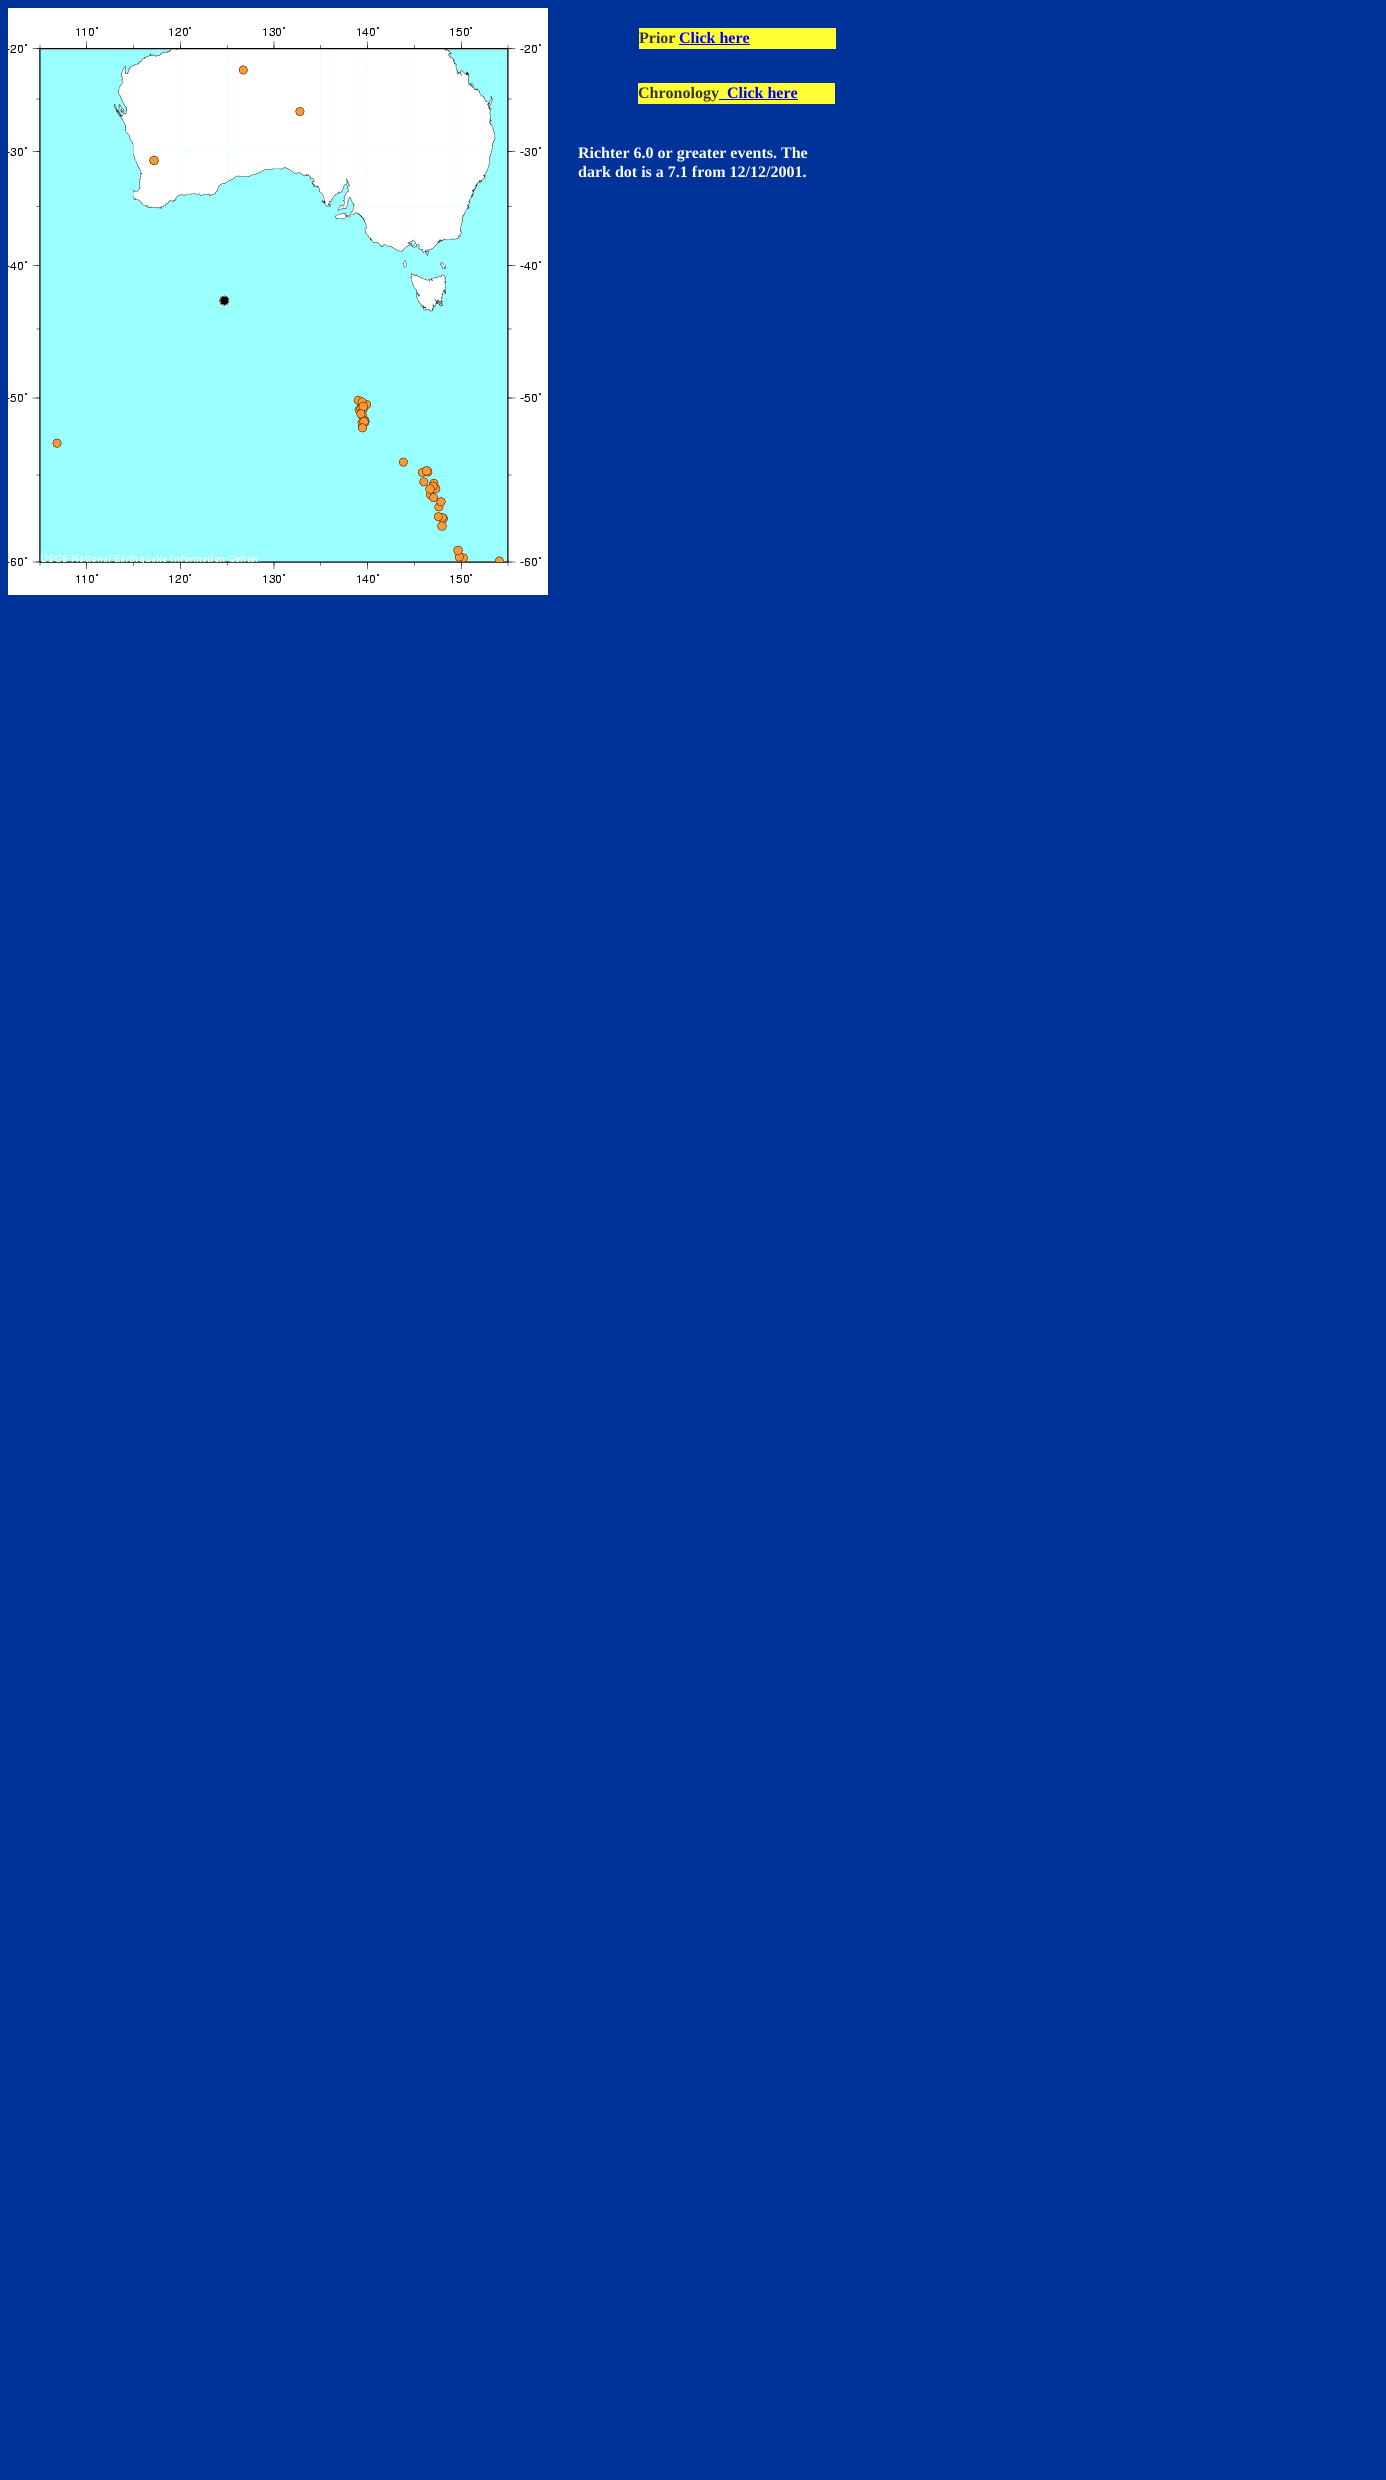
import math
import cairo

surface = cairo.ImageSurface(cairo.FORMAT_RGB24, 1386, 2480)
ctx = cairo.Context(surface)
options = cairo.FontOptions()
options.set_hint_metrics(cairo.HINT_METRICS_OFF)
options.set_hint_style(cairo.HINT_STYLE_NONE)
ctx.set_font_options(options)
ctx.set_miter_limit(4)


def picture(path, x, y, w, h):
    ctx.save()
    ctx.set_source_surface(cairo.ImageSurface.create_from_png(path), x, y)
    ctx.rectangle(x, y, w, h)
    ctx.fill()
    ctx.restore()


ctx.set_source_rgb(0, 0.2, 0.6)
ctx.paint()
picture("img1.png", 8, 8, 540, 587)
ctx.set_source_rgb(1, 1, 0.2)
ctx.rectangle(639, 28, 197, 21)
ctx.fill()
ctx.select_font_face("Liberation Serif", cairo.FONT_SLANT_NORMAL, cairo.FONT_WEIGHT_BOLD)
ctx.set_font_size(16)
ctx.set_source_rgb(0.2, 0.2, 0.2)
ctx.move_to(639, 43)
ctx.show_text("Prior")
ctx.set_source_rgb(0, 0, 1)
ctx.move_to(679, 43)
ctx.show_text("Click here")
ctx.rectangle(679, 44, 71, 1)
ctx.fill()
ctx.set_source_rgb(1, 1, 0.2)
ctx.rectangle(638, 83, 197, 21)
ctx.fill()
ctx.set_source_rgb(0.2, 0.2, 0.2)
ctx.move_to(638, 98)
ctx.show_text("Chronology")
ctx.set_source_rgb(0, 0, 1)
ctx.rectangle(719, 99, 79, 1)
ctx.fill()
ctx.move_to(727, 98)
ctx.show_text("Click here")
ctx.set_source_rgb(1, 1, 1)
ctx.move_to(578, 158)
ctx.show_text("Richter 6.0 or greater events. The")
ctx.move_to(578, 177)
ctx.show_text("dark dot is a 7.1 from 12/12/2001.")
surface.write_to_png("page.png")
